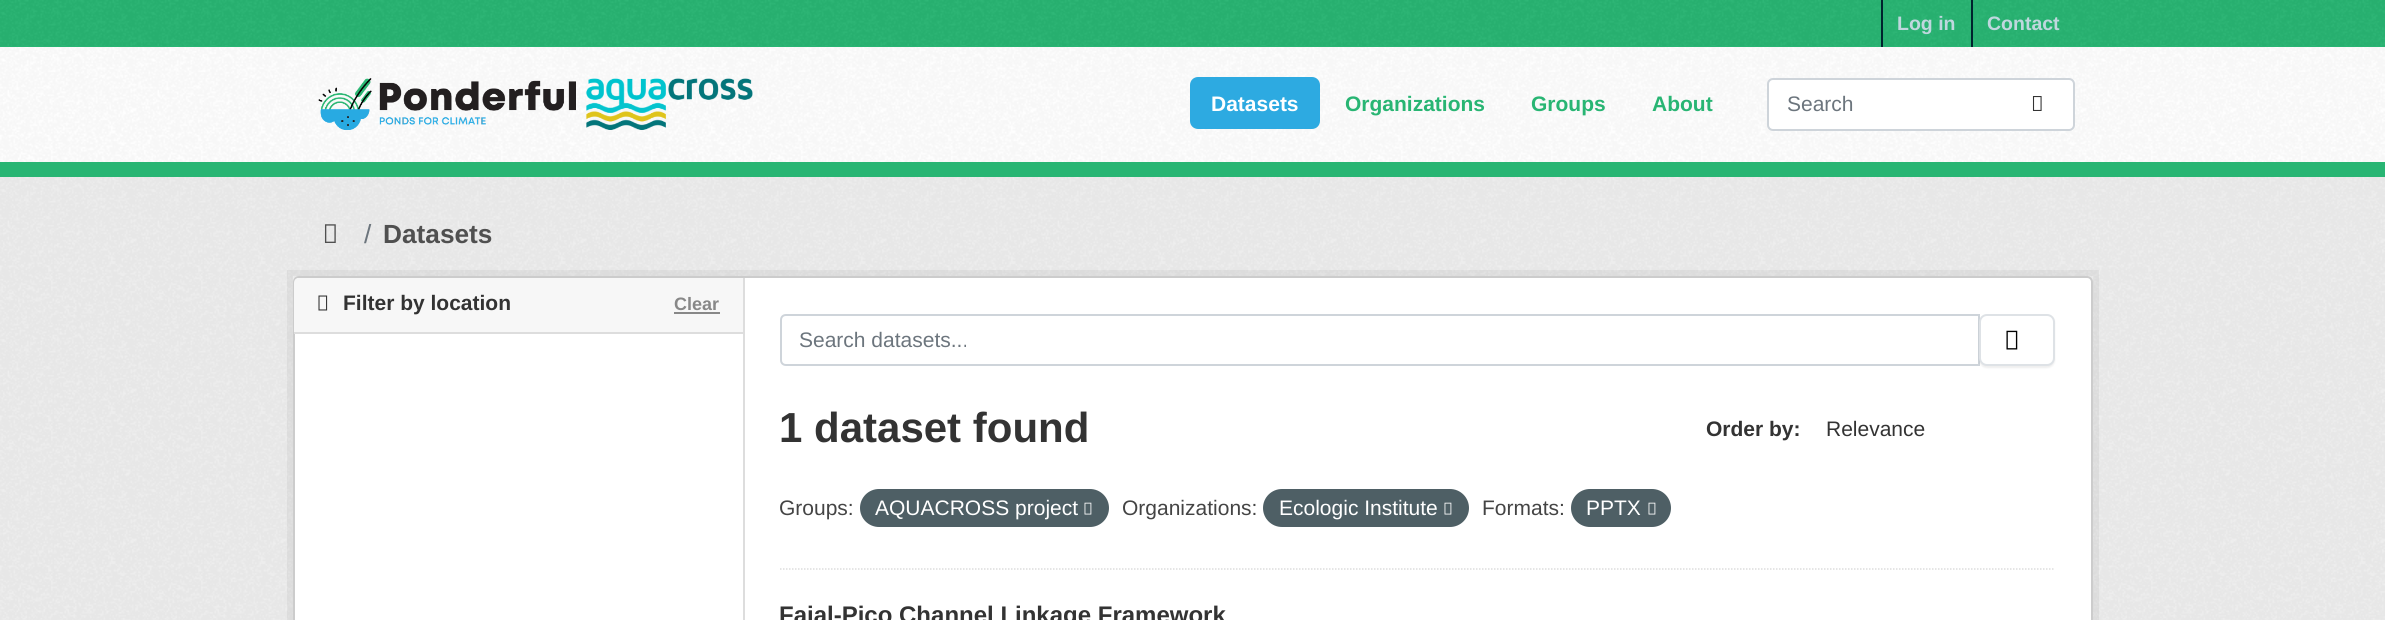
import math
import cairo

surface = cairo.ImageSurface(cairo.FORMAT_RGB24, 2385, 620)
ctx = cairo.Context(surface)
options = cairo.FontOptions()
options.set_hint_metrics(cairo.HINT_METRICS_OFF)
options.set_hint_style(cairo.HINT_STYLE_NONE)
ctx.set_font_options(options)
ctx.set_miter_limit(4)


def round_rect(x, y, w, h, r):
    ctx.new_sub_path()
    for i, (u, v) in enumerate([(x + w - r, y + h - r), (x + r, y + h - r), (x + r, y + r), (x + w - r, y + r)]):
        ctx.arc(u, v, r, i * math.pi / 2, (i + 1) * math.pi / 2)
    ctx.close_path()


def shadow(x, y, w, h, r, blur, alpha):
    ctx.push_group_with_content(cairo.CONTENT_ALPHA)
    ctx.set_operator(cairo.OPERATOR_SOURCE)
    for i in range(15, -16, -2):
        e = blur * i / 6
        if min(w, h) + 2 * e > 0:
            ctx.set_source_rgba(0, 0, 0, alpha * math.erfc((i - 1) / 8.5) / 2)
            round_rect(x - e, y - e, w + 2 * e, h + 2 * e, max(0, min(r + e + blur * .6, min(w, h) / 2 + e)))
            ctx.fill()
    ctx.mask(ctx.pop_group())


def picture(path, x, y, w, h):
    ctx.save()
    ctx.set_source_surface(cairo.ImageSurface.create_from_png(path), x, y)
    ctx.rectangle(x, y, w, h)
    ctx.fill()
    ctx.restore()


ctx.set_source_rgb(0.157, 0.71, 0.451)
ctx.paint()
picture("img1.png", 0, 0, 2385, 46)
ctx.set_source_rgb(0, 0.137, 0.18)
ctx.rectangle(1881, 0, 2, 47)
ctx.fill()
ctx.select_font_face("Liberation Sans", cairo.FONT_SLANT_NORMAL, cairo.FONT_WEIGHT_BOLD)
ctx.set_font_size(19.5)
ctx.set_source_rgb(0.749, 0.843, 0.871)
ctx.move_to(1897, 30)
ctx.show_text("Log in")
ctx.set_source_rgb(0, 0.137, 0.18)
ctx.rectangle(1971, 0, 2, 47)
ctx.fill()
ctx.set_source_rgb(0.749, 0.843, 0.871)
ctx.move_to(1987, 30)
ctx.show_text("Contact")
ctx.set_source_rgb(1, 1, 1)
ctx.rectangle(0, 47, 2385, 115)
ctx.fill()
picture("img2.png", 0, 47, 2385, 115)
picture("img3.png", 318, 78, 435, 52)
ctx.set_source_rgb(0.176, 0.667, 0.882)
round_rect(1190, 77, 130, 52, 8)
ctx.fill()
ctx.set_font_size(21)
ctx.set_source_rgb(1, 1, 1)
ctx.move_to(1211, 111)
ctx.show_text("Datasets")
ctx.set_source_rgb(0.157, 0.71, 0.451)
ctx.move_to(1345, 111)
ctx.show_text("Organizations")
ctx.move_to(1531, 111)
ctx.show_text("Groups")
ctx.move_to(1652, 111)
ctx.show_text("About")
ctx.set_source_rgb(1, 1, 1)
round_rect(1768, 79, 306, 51, 5)
ctx.fill_preserve()
ctx.set_source_rgb(0.808, 0.831, 0.855)
ctx.stroke()
ctx.select_font_face("Liberation Sans")
ctx.set_source_rgb(0.424, 0.459, 0.49)
ctx.move_to(1787, 111)
ctx.show_text("Search")
picture("img4.png", 2032, 96, 10, 15)
ctx.set_source_rgb(0.933, 0.933, 0.933)
ctx.rectangle(0, 177, 2385, 443)
ctx.fill()
picture("img5.png", 0, 177, 2385, 443)
picture("img6.png", 324, 224, 12, 19)
ctx.set_font_size(26.25)
ctx.set_source_rgb(0.424, 0.459, 0.49)
ctx.move_to(364, 243)
ctx.show_text("/")
ctx.select_font_face("Liberation Sans", cairo.FONT_SLANT_NORMAL, cairo.FONT_WEIGHT_BOLD)
ctx.set_source_rgb(0.314, 0.314, 0.314)
ctx.move_to(383, 243)
ctx.show_text("Datasets")
ctx.rectangle(290, 273, 1806, 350)
ctx.set_source_rgba(0, 0, 0, 0.05)
ctx.set_line_width(6)
ctx.stroke()
ctx.set_source_rgb(1, 1, 1)
round_rect(294, 277, 1798, 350, 5)
ctx.fill_preserve()
ctx.set_source_rgb(0.8, 0.8, 0.8)
ctx.set_line_width(2)
ctx.stroke()
ctx.set_source_rgb(0.965, 0.965, 0.965)
ctx.new_path()
ctx.move_to(299, 278)
ctx.line_to(743, 278)
ctx.line_to(743, 333)
ctx.line_to(294, 333)
ctx.line_to(294, 283)
ctx.curve_to(294, 280, 296, 278, 299, 278)
ctx.close_path()
ctx.fill()
ctx.set_source_rgb(0.867, 0.867, 0.867)
ctx.rectangle(294, 332, 449, 2)
ctx.fill()
picture("img7.png", 318, 295, 10, 16)
ctx.set_font_size(21)
ctx.set_source_rgb(0.2, 0.2, 0.2)
ctx.move_to(343, 310)
ctx.show_text("Filter by location")
ctx.set_font_size(18)
ctx.set_source_rgb(0.533, 0.533, 0.533)
ctx.move_to(674, 310)
ctx.show_text("Clear")
ctx.rectangle(674, 312, 46, 2)
ctx.fill()
ctx.set_source_rgb(0.867, 0.867, 0.867)
ctx.rectangle(743, 278, 2, 342)
ctx.fill()
ctx.new_path()
ctx.move_to(780, 569)
ctx.line_to(2055, 569)
ctx.set_line_width(1.5)
ctx.set_dash([1.5, 1.5])
ctx.stroke()
ctx.new_path()
ctx.move_to(786, 315)
ctx.line_to(1979, 315)
ctx.line_to(1979, 365)
ctx.line_to(786, 365)
ctx.curve_to(783, 365, 781, 363, 781, 360)
ctx.line_to(781, 320)
ctx.curve_to(781, 317, 783, 315, 786, 315)
ctx.close_path()
ctx.set_source_rgb(0.808, 0.831, 0.855)
ctx.set_line_width(2)
ctx.set_dash([])
ctx.stroke()
ctx.select_font_face("Liberation Sans")
ctx.set_font_size(21)
ctx.set_source_rgb(0.424, 0.459, 0.49)
ctx.move_to(799, 347)
ctx.show_text("Search datasets...")
ctx.set_source_rgb(0, 0, 0)
shadow(1979, 315, 76, 53, 8, 1, 0.07)
ctx.set_source_rgb(1, 1, 1)
round_rect(1980, 315, 74, 50, 7)
ctx.fill_preserve()
ctx.set_source_rgb(0.871, 0.886, 0.902)
ctx.stroke()
picture("img8.png", 2006, 330, 12, 20)
ctx.select_font_face("Liberation Sans", cairo.FONT_SLANT_NORMAL, cairo.FONT_WEIGHT_BOLD)
ctx.set_font_size(42)
ctx.set_source_rgb(0.2, 0.2, 0.2)
ctx.move_to(779, 442)
ctx.show_text("1 dataset found")
ctx.set_font_size(21)
ctx.move_to(1706, 436)
ctx.show_text("Order by:")
ctx.select_font_face("Liberation Sans")
ctx.move_to(1826, 436)
ctx.show_text("Relevance")
ctx.set_source_rgb(0.267, 0.267, 0.267)
ctx.move_to(779, 515)
ctx.show_text("Groups:")
ctx.set_source_rgb(0.306, 0.373, 0.396)
round_rect(860, 489, 249, 38, 19)
ctx.fill()
ctx.set_source_rgb(1, 1, 1)
ctx.move_to(875, 515)
ctx.show_text("AQUACROSS project")
picture("img9.png", 1084, 502, 8, 13)
ctx.set_source_rgb(0.267, 0.267, 0.267)
ctx.move_to(1122, 515)
ctx.show_text("Organizations:")
ctx.set_source_rgb(0.306, 0.373, 0.396)
round_rect(1263, 489, 206, 38, 19)
ctx.fill()
ctx.set_source_rgb(1, 1, 1)
ctx.move_to(1279, 515)
ctx.show_text("Ecologic Institute")
picture("img9.png", 1444, 502, 8, 13)
ctx.set_source_rgb(0.267, 0.267, 0.267)
ctx.move_to(1482, 515)
ctx.show_text("Formats:")
ctx.set_source_rgb(0.306, 0.373, 0.396)
round_rect(1571, 489, 100, 38, 19)
ctx.fill()
ctx.set_source_rgb(1, 1, 1)
ctx.move_to(1586, 515)
ctx.show_text("PPTX")
picture("img9.png", 1648, 502, 8, 13)
ctx.select_font_face("Liberation Sans", cairo.FONT_SLANT_NORMAL, cairo.FONT_WEIGHT_BOLD)
ctx.set_font_size(24)
ctx.set_source_rgb(0.2, 0.2, 0.2)
ctx.move_to(779, 623)
ctx.show_text("Faial-Pico Channel Linkage Framework")
surface.write_to_png("page.png")
